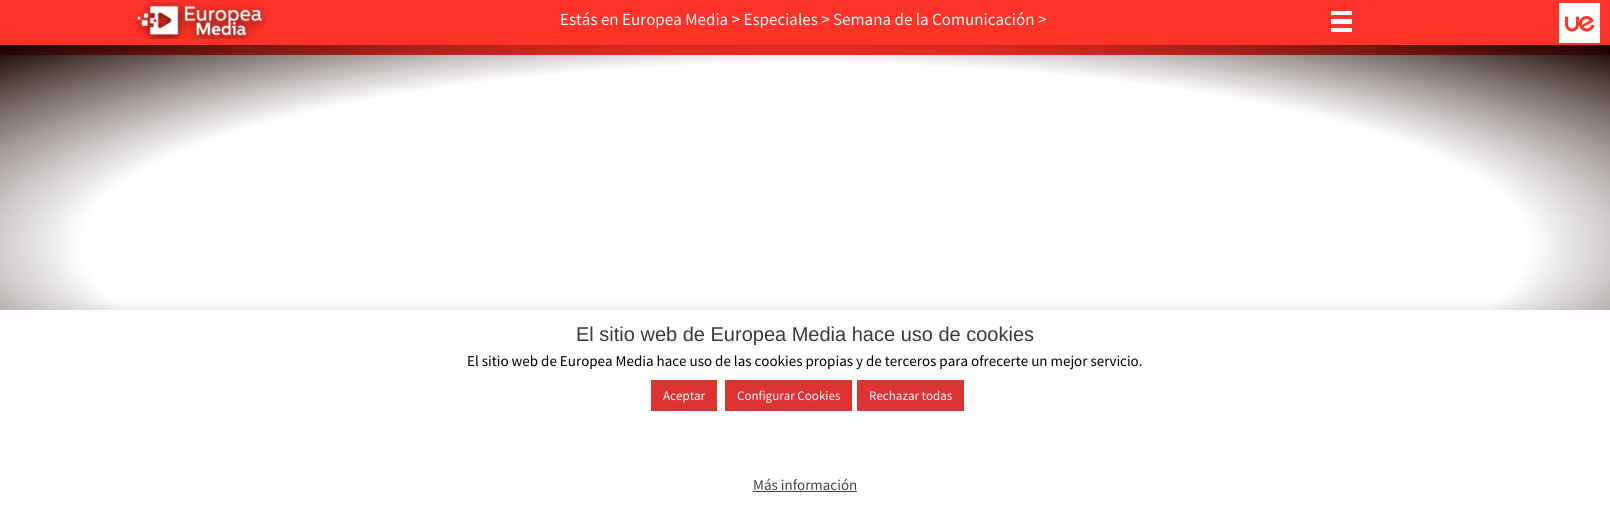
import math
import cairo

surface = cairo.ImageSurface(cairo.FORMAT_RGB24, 1610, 511)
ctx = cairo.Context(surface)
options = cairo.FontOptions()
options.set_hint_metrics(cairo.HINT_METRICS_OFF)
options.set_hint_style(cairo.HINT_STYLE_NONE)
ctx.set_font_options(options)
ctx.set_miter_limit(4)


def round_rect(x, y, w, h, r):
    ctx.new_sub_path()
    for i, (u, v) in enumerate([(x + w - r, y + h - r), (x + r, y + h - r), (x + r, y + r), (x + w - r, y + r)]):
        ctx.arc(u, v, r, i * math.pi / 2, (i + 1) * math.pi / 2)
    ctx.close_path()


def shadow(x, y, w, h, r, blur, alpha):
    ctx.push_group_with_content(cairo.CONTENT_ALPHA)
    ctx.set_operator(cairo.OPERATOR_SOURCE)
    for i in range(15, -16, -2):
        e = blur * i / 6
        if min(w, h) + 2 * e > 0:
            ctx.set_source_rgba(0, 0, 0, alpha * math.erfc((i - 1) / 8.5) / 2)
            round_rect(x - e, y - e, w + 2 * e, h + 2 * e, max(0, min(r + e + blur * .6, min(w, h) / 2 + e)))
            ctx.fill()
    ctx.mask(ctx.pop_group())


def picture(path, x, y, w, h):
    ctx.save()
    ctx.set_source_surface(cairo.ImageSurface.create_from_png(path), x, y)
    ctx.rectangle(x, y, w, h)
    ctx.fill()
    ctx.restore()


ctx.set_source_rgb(1, 1, 1)
ctx.paint()
ctx.set_source_rgb(1, 0.196, 0.157)
ctx.rectangle(0, 0, 1610, 55)
ctx.fill()
gradient = cairo.RadialGradient(0, 0, 0, 0, 0, 1)
gradient.set_matrix(cairo.Matrix(1 / 1138, 0, 0, 1 / 283, -1 * 805 / 1138, -1 * 245 / 283))
gradient.add_color_stop_rgba(0.64, 0.098, 0.012, 0, 0)
gradient.add_color_stop_rgba(1, 0.098, 0.012, 0, 1)
ctx.set_source(gradient)
ctx.rectangle(0, 45, 1610, 265)
ctx.fill()
gradient = cairo.RadialGradient(0, 0, 0, 0, 0, 1)
gradient.set_matrix(cairo.Matrix(1 / 1610, 0, 0, 1 / 101, -1 * 805 / 1610, -1 * -46 / 101))
gradient.add_color_stop_rgba(0, 1, 0.196, 0.157, 1)
gradient.add_color_stop_rgba(1, 1, 0.196, 0.157, 0)
ctx.set_source(gradient)
ctx.new_path()
ctx.move_to(0, 55)
ctx.line_to(1610, 55)
ctx.line_to(1610, -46)
ctx.curve_to(1342, 9, 1073, 37, 805, 37)
ctx.curve_to(537, 37, 268, 9, 0, -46)
ctx.close_path()
ctx.fill()
picture("img1.png", 135, 2, 133, 37)
ctx.select_font_face("Source Sans Pro")
ctx.set_font_size(17)
ctx.set_source_rgb(1, 1, 1)
ctx.move_to(560, 25)
ctx.show_text("Estás en Europea Media > Especiales > Semana de la Comunicación >")
ctx.rectangle(1331, 11, 21, 4)
ctx.fill()
ctx.rectangle(1331, 19, 21, 5)
ctx.fill()
ctx.rectangle(1331, 28, 21, 4)
ctx.fill()
picture("img2.png", 1559, 3, 41, 40)
ctx.set_source_rgb(0.675, 0.671, 0.671)
shadow(0, 309, 1610, 201, 0, 5, 0.3)
ctx.set_source_rgb(1, 1, 1)
ctx.rectangle(0, 310, 1610, 201)
ctx.fill()
ctx.select_font_face("Liberation Sans")
ctx.set_font_size(20)
ctx.set_source_rgb(0.227, 0.227, 0.227)
ctx.move_to(576, 341)
ctx.show_text("El sitio web de Europea Media hace uso de cookies")
ctx.select_font_face("Source Sans Pro")
ctx.set_font_size(15)
ctx.set_source_rgb(0, 0, 0)
ctx.move_to(467, 366)
ctx.show_text("El sitio web de Europea Media hace uso de las cookies propias y de terceros para ofrecerte un mejor servicio.")
ctx.set_source_rgb(0.867, 0.2, 0.2)
ctx.rectangle(651, 380, 66, 31)
ctx.fill()
ctx.set_font_size(13)
ctx.set_source_rgb(1, 1, 1)
ctx.move_to(663, 400)
ctx.show_text("Aceptar")
ctx.set_source_rgb(0.867, 0.2, 0.2)
ctx.rectangle(725, 380, 127, 31)
ctx.fill()
ctx.set_source_rgb(1, 1, 1)
ctx.move_to(737, 400)
ctx.show_text("Configurar Cookies")
ctx.set_source_rgb(0.867, 0.2, 0.2)
ctx.rectangle(857, 380, 107, 31)
ctx.fill()
ctx.set_source_rgb(1, 1, 1)
ctx.move_to(869, 400)
ctx.show_text("Rechazar todas")
ctx.set_font_size(15)
ctx.set_source_rgb(0.267, 0.267, 0.267)
ctx.move_to(753, 490)
ctx.show_text("Más información")
ctx.rectangle(753, 491, 104, 1)
ctx.fill()
surface.write_to_png("page.png")
